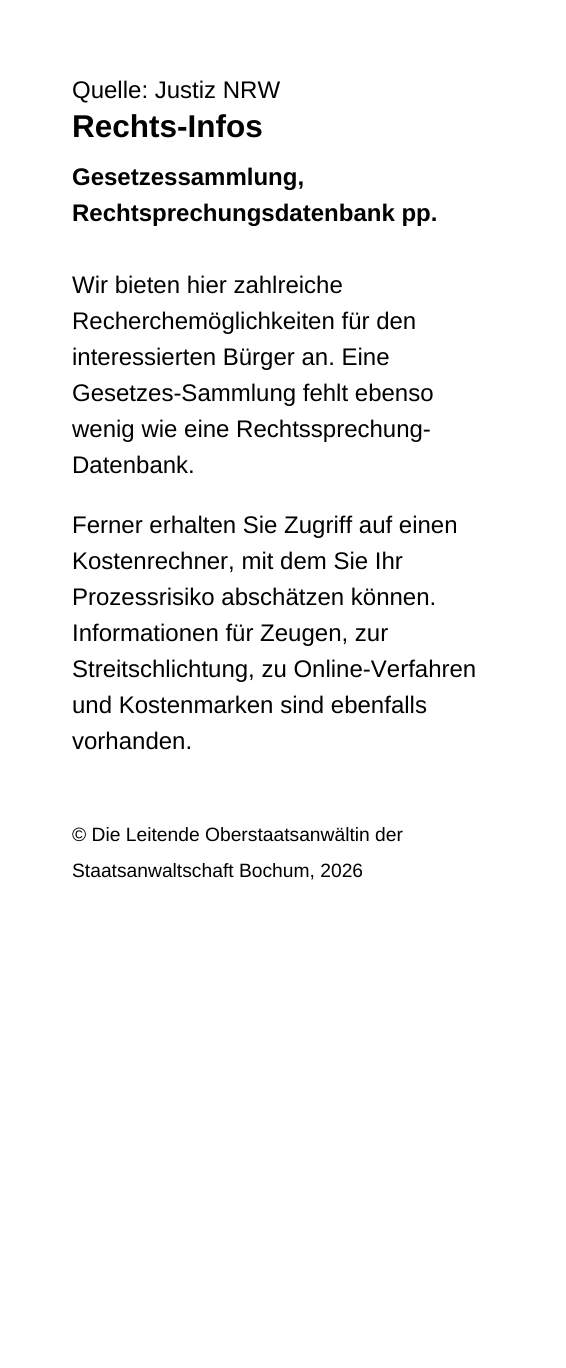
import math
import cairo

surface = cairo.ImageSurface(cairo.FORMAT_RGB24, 566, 1368)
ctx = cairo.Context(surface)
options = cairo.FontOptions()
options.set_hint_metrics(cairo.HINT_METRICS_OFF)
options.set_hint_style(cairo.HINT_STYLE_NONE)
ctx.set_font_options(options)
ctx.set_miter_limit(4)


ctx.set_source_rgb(1, 1, 1)
ctx.paint()
ctx.select_font_face("Liberation Sans")
ctx.set_font_size(24)
ctx.set_source_rgb(0, 0, 0)
ctx.move_to(72, 98)
ctx.show_text("Quelle: Justiz NRW")
ctx.select_font_face("Liberation Sans", cairo.FONT_SLANT_NORMAL, cairo.FONT_WEIGHT_BOLD)
ctx.set_font_size(31.5)
ctx.move_to(72, 137)
ctx.show_text("Rechts-Infos")
ctx.set_font_size(24)
ctx.move_to(72, 185)
ctx.show_text("Gesetzessammlung,")
ctx.move_to(72, 221)
ctx.show_text("Rechtsprechungsdatenbank pp.")
ctx.select_font_face("Liberation Sans")
ctx.move_to(72, 293)
ctx.show_text("Wir bieten hier zahlreiche")
ctx.move_to(72, 329)
ctx.show_text("Recherchemöglichkeiten für den")
ctx.move_to(72, 365)
ctx.show_text("interessierten Bürger an. Eine")
ctx.move_to(72, 401)
ctx.show_text("Gesetzes-Sammlung fehlt ebenso")
ctx.move_to(72, 437)
ctx.show_text("wenig wie eine Rechtssprechung-")
ctx.move_to(72, 473)
ctx.show_text("Datenbank.")
ctx.move_to(72, 533)
ctx.show_text("Ferner erhalten Sie Zugriff auf einen")
ctx.move_to(72, 569)
ctx.show_text("Kostenrechner, mit dem Sie Ihr")
ctx.move_to(72, 605)
ctx.show_text("Prozessrisiko abschätzen können.")
ctx.move_to(72, 641)
ctx.show_text("Informationen für Zeugen, zur")
ctx.move_to(72, 677)
ctx.show_text("Streitschlichtung, zu Online-Verfahren")
ctx.move_to(72, 713)
ctx.show_text("und Kostenmarken sind ebenfalls")
ctx.move_to(72, 749)
ctx.show_text("vorhanden.")
ctx.set_font_size(19.25)
ctx.move_to(72, 841)
ctx.show_text("© Die Leitende Oberstaatsanwältin der")
ctx.move_to(72, 877)
ctx.show_text("Staatsanwaltschaft Bochum, 2026")
surface.write_to_png("page.png")
